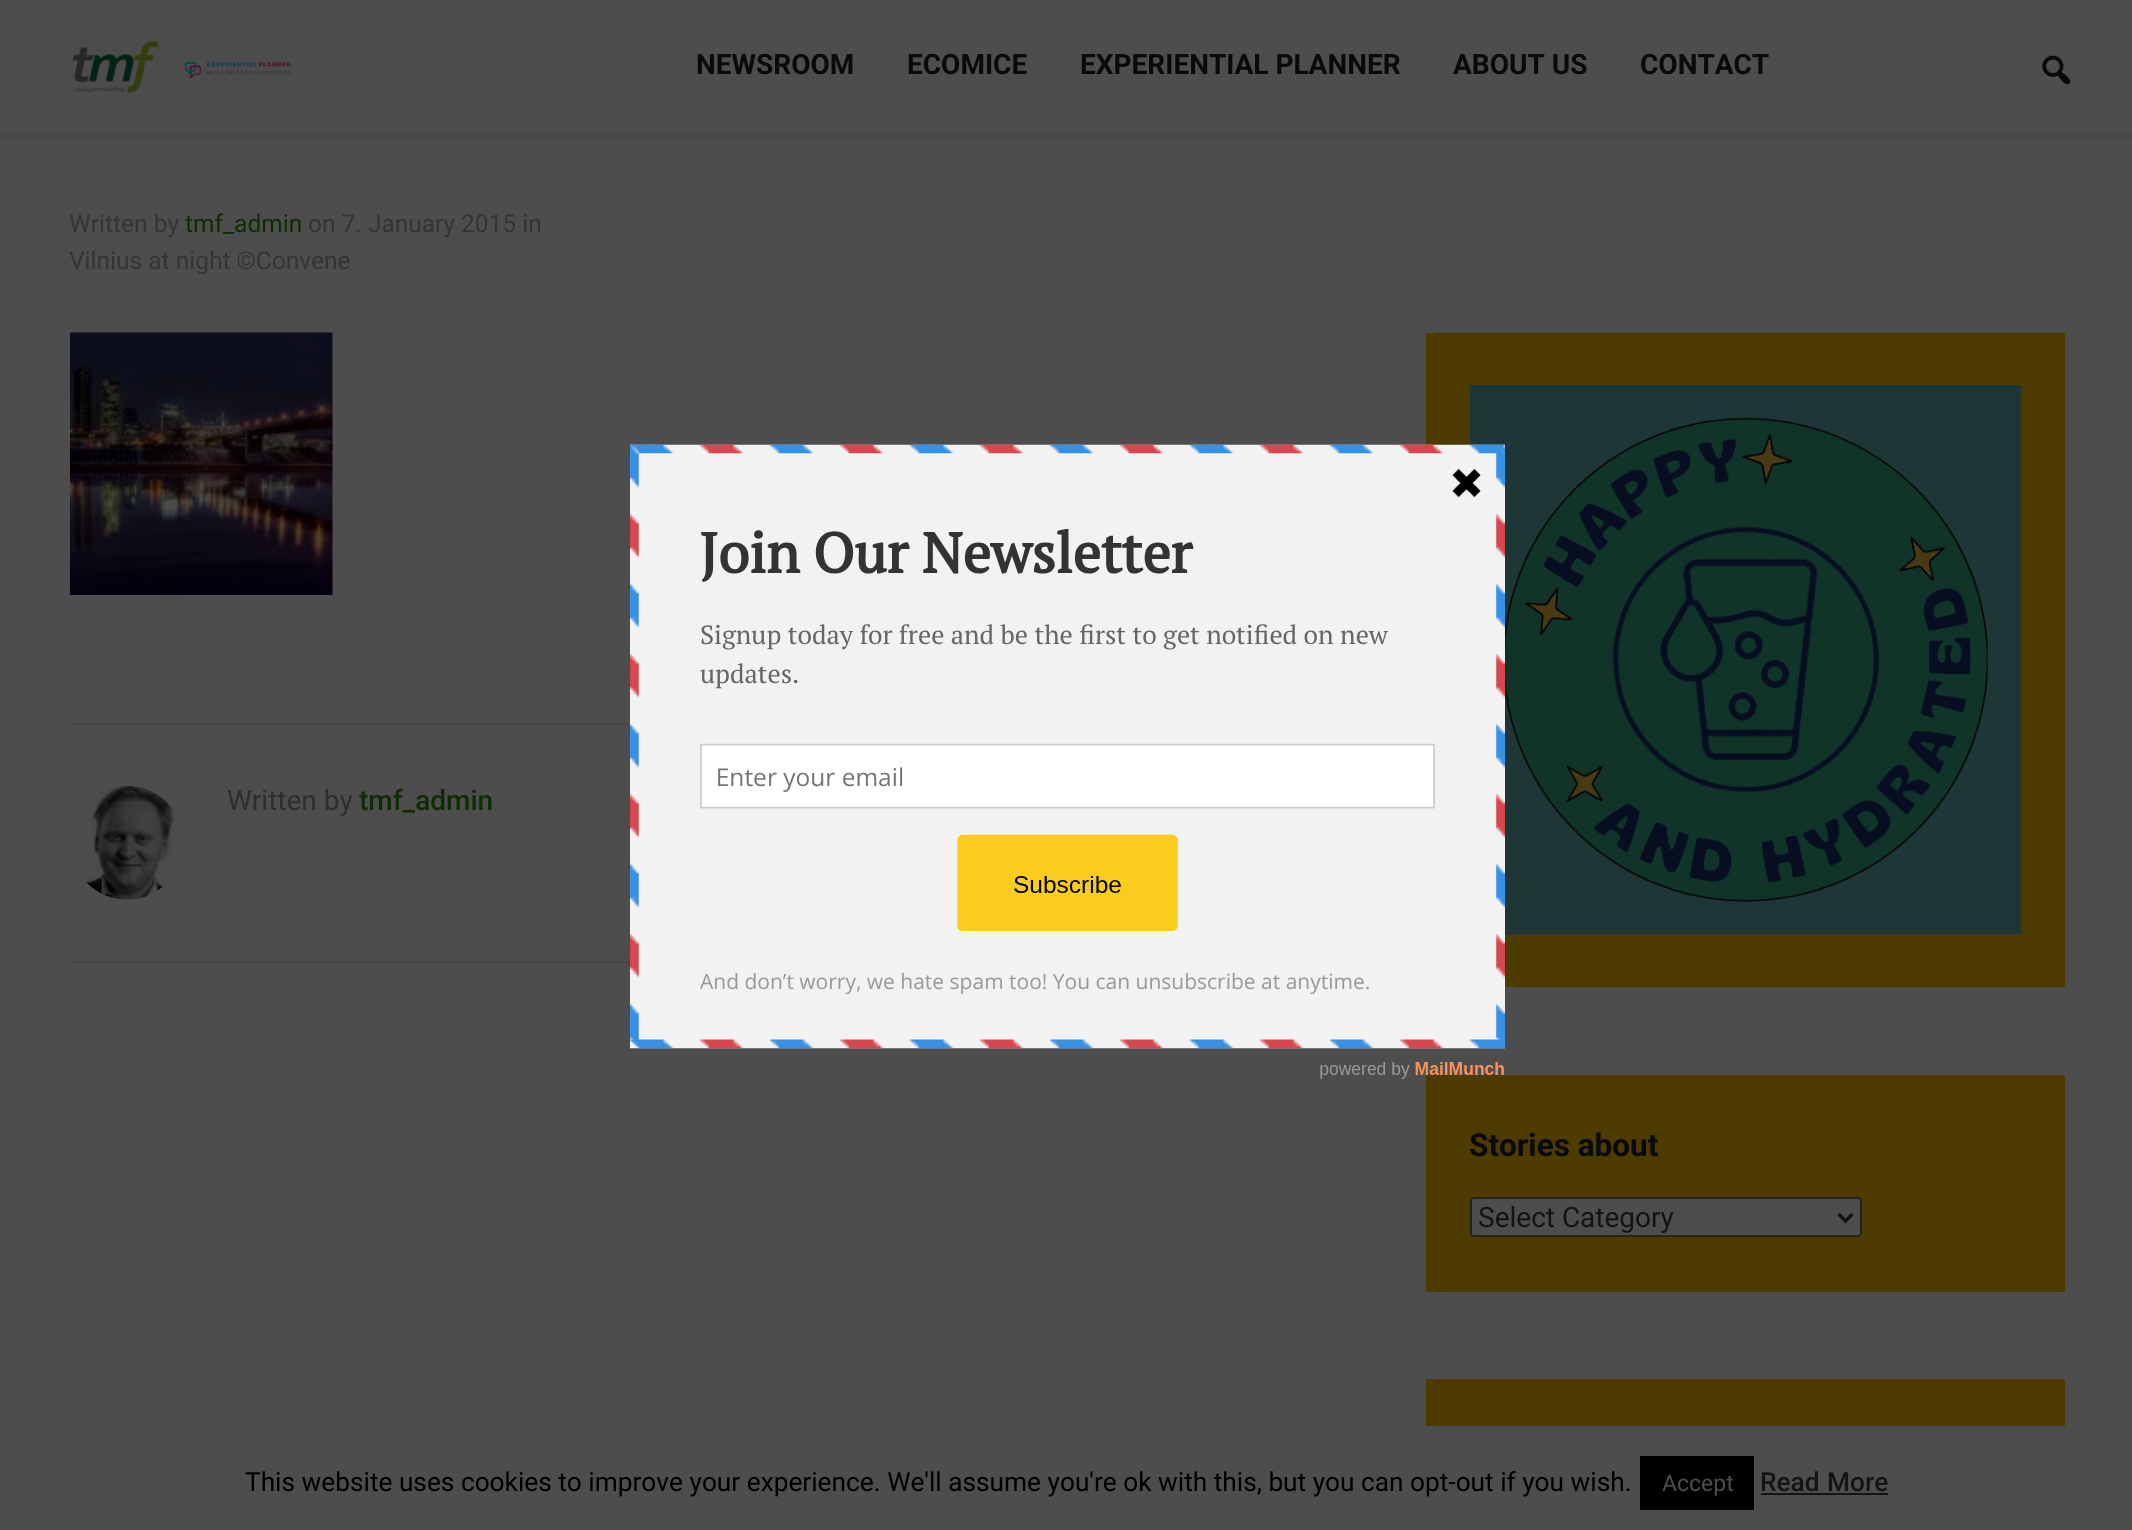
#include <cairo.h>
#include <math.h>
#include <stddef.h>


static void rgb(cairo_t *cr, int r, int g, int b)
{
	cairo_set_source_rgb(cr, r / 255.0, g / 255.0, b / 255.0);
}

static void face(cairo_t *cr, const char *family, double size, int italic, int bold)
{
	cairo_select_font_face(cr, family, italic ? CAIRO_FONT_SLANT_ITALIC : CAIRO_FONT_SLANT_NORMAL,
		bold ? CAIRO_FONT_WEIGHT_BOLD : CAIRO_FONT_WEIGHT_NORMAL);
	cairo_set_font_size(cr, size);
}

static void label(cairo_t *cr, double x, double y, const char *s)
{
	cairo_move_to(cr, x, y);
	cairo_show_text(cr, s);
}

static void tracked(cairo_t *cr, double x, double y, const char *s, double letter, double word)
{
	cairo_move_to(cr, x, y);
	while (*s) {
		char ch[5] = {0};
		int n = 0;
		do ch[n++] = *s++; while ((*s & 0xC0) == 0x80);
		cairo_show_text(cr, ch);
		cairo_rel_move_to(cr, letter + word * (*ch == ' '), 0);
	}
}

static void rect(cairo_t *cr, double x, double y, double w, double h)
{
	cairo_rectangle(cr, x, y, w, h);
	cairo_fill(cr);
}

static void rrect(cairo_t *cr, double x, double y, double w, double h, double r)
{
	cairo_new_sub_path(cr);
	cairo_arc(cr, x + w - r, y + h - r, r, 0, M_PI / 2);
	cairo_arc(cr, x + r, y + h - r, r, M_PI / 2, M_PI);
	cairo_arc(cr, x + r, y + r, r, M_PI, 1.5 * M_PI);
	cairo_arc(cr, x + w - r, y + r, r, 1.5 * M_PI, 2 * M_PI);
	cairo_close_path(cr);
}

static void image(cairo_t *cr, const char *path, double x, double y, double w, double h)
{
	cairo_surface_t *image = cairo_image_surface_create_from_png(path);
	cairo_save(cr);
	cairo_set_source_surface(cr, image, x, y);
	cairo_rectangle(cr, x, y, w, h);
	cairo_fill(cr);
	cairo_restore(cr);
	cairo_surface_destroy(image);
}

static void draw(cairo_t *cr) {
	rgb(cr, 77, 77, 77);
	cairo_paint(cr);
	rgb(cr, 71, 71, 71);
	rect(cr, 0, 135, 2132, 2);
	image(cr, "image0.png", 72, 40, 220, 53);
	face(cr, "Roboto", 28, 0, 1);
	rgb(cr, 10, 10, 10);
	label(cr, 696, 74, "NEWSROOM");
	label(cr, 907, 74, "ECOMICE");
	label(cr, 1080, 74, "EXPERIENTIAL PLANNER");
	label(cr, 1453, 74, "ABOUT US");
	label(cr, 1640, 74, "CONTACT");
	image(cr, "image1.png", 2042, 55, 29, 30);
	face(cr, "Roboto", 24.5, 0, 0);
	rgb(cr, 52, 52, 52);
	label(cr, 69, 232, "Written by");
	rgb(cr, 15, 45, 4);
	label(cr, 185, 232, "tmf_admin");
	rgb(cr, 52, 52, 52);
	label(cr, 308, 232, "on 7. January 2015 in");
	label(cr, 69, 269, "Vilnius at night ©Convene");
	image(cr, "image2.png", 70, 332, 263, 263);
	rgb(cr, 71, 71, 71);
	rect(cr, 70, 723, 560, 2);
	rect(cr, 70, 961, 560, 2);
	image(cr, "image3.png", 84, 785, 92, 115);
	face(cr, "Roboto", 28, 0, 0);
	rgb(cr, 46, 46, 46);
	label(cr, 227, 810, "Written by");
	face(cr, "Roboto Medium", 28, 0, 0);
	rgb(cr, 15, 45, 4);
	label(cr, 359, 810, "tmf_admin");
	rgb(cr, 77, 59, 0);
	rect(cr, 1426, 333, 639, 654);
	image(cr, "image4.png", 1470, 385, 552, 550);
	rect(cr, 1426, 1075, 639, 217);
	face(cr, "Roboto", 31.5, 0, 1);
	rgb(cr, 10, 10, 10);
	label(cr, 1469, 1156, "Stories about");
	rgb(cr, 77, 77, 77);
	rrect(cr, 1471, 1198, 390, 38, 3);
	cairo_fill_preserve(cr);
	rgb(cr, 35, 35, 35);
	cairo_stroke(cr);
	cairo_new_path(cr);
	cairo_move_to(cr, 1838.5, 1214);
	cairo_line_to(cr, 1845.5, 1221);
	cairo_line_to(cr, 1852.5, 1214);
	rgb(cr, 20, 20, 20);
	cairo_set_line_width(cr, 3.5);
	cairo_stroke(cr);
	face(cr, "Roboto", 28, 0, 0);
	label(cr, 1478, 1227, "Select Category");
	rgb(cr, 77, 59, 0);
	rect(cr, 1426, 1379, 639, 47);
	face(cr, "Roboto", 26.25, 0, 0);
	rgb(cr, 0, 0, 0);
	label(cr, 245, 1491, "This website uses cookies to improve your experience. We'll assume you're ok with this, but you can opt-out if you wish.");
	rect(cr, 1640, 1456, 114, 54);
	face(cr, "Roboto", 23, 0, 0);
	rgb(cr, 77, 77, 77);
	label(cr, 1662, 1491, "Accept");
	face(cr, "Roboto Medium", 26.25, 0, 0);
	rgb(cr, 20, 20, 20);
	tracked(cr, 1760, 1491, "Read More", 0, 1);
	rect(cr, 1761, 1493, 127, 2);
	image(cr, "image5.png", 630, 444, 875, 635);
}

int main(void) {
	cairo_surface_t *surface = cairo_image_surface_create(CAIRO_FORMAT_RGB24, 2132, 1530);
	cairo_t *cr = cairo_create(surface);
	cairo_font_options_t *options = cairo_font_options_create();
	cairo_font_options_set_hint_metrics(options, CAIRO_HINT_METRICS_OFF);
	cairo_font_options_set_hint_style(options, CAIRO_HINT_STYLE_NONE);
	cairo_set_font_options(cr, options);
	cairo_set_miter_limit(cr, 4);
	draw(cr);
	cairo_surface_write_to_png(surface, "render.png");
	cairo_font_options_destroy(options);
	cairo_destroy(cr);
	cairo_surface_destroy(surface);
	return 0;
}
